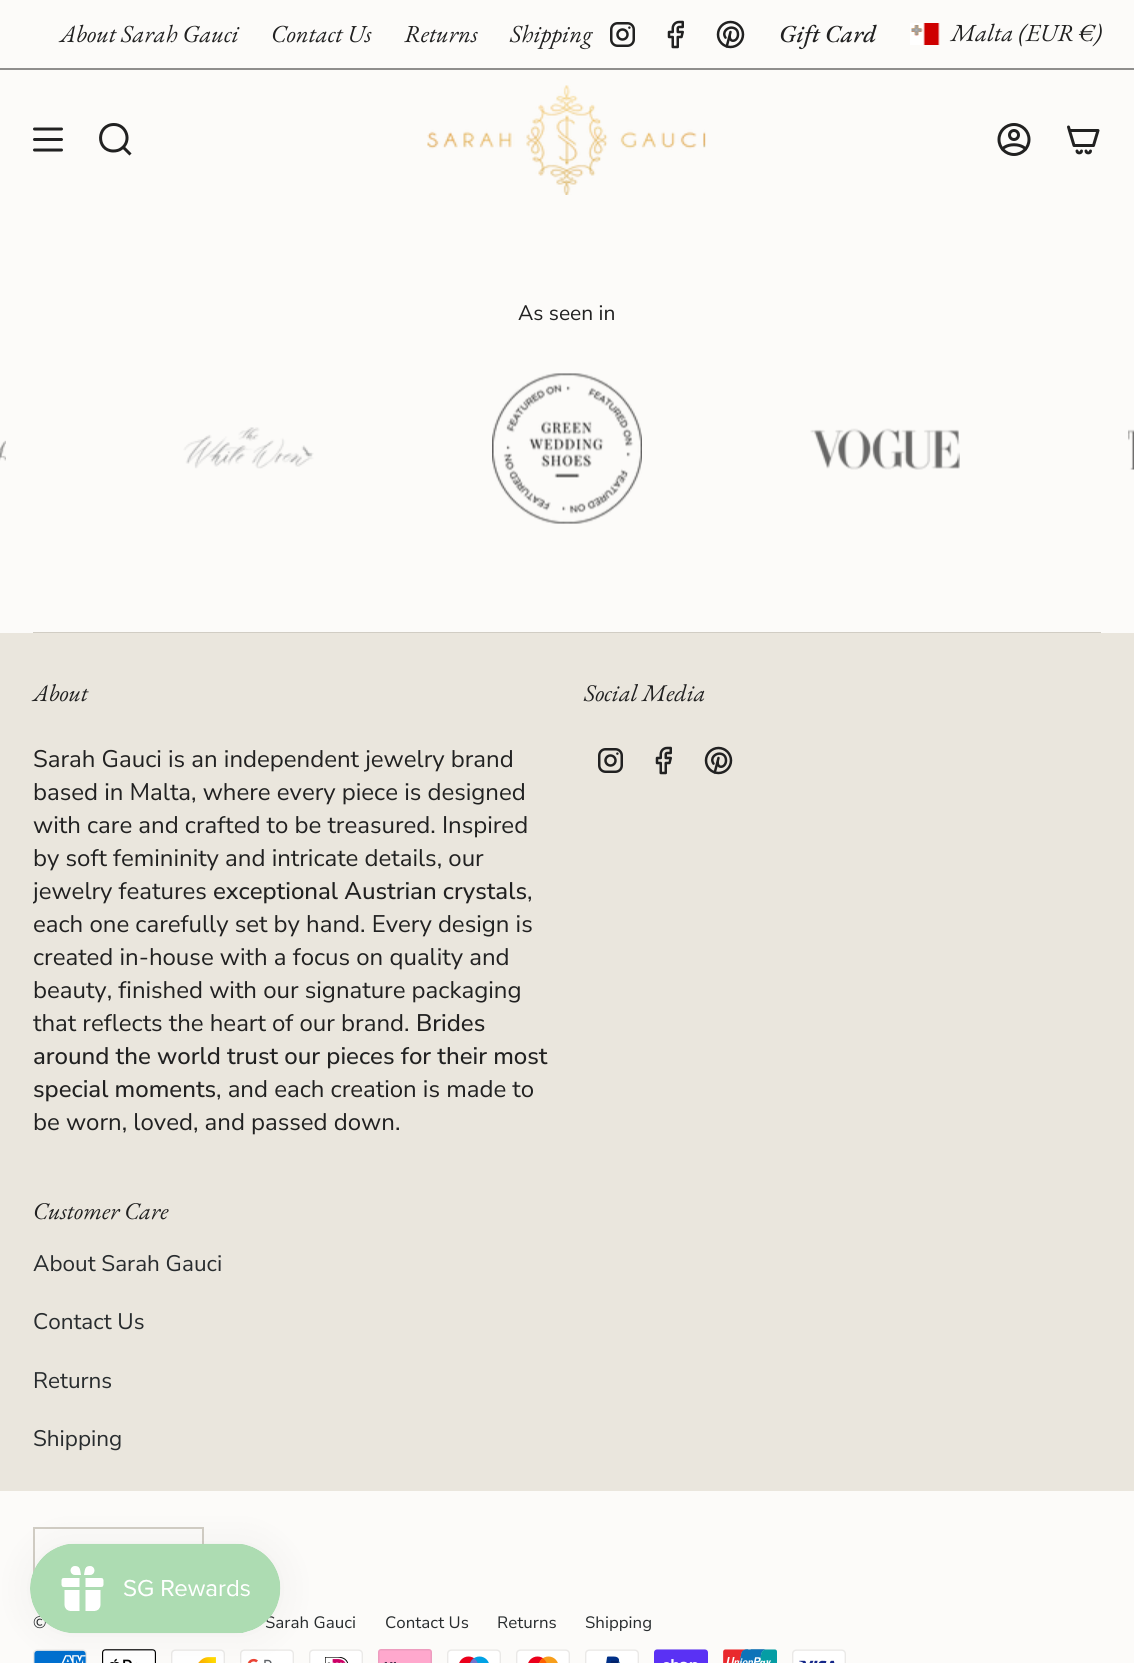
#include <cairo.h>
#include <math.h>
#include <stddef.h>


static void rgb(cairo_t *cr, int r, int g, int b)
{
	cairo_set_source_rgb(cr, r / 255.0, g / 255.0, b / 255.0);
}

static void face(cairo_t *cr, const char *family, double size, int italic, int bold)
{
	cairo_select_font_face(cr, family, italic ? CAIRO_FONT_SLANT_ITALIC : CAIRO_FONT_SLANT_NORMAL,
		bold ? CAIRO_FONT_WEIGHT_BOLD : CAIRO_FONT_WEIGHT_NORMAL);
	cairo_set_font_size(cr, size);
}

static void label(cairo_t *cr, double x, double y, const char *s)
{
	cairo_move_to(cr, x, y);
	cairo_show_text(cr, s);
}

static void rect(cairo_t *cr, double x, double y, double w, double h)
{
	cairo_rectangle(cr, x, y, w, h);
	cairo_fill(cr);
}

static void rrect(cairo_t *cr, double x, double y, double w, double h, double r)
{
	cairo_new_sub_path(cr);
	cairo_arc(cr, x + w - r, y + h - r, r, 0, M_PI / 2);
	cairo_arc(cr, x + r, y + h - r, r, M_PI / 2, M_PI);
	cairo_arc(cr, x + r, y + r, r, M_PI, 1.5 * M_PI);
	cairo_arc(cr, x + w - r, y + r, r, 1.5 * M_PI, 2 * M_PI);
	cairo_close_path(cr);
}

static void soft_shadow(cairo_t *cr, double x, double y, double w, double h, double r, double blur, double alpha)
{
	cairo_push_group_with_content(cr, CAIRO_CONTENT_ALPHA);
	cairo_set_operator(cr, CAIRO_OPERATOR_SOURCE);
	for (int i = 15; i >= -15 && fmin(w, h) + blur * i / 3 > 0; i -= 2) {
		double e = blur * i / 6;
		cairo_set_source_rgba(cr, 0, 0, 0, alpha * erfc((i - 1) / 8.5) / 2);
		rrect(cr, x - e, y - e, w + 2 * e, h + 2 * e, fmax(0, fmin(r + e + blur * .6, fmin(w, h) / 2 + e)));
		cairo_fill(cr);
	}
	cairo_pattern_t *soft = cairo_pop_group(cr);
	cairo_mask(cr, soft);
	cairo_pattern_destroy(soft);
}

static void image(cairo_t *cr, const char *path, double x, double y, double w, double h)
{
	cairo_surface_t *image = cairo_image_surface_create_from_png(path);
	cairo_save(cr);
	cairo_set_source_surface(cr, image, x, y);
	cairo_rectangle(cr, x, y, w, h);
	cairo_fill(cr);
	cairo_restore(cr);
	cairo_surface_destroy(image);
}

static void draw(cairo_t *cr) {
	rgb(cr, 252, 251, 249);
	cairo_paint(cr);
	face(cr, "EB Garamond", 24.5, 1, 0);
	rgb(cr, 33, 33, 33);
	label(cr, 60, 42, "About Sarah Gauci");
	label(cr, 271, 42, "Contact Us");
	label(cr, 404, 42, "Returns");
	label(cr, 510, 42, "Shipping");
	image(cr, "image0.png", 610, 22, 25, 25);
	image(cr, "image1.png", 667, 20, 17, 29);
	image(cr, "image2.png", 716, 20, 29, 29);
	face(cr, "EB Garamond Medium", 24.5, 1, 0);
	label(cr, 779, 42, "Gift Card");
	image(cr, "image3.png", 910, 23, 30, 22);
	face(cr, "EB Garamond", 24.5, 1, 0);
	label(cr, 951, 41, "Malta (EUR €)");
	rgb(cr, 143, 142, 141);
	rect(cr, 0, 68, 1134, 2);
	cairo_new_path(cr);
	cairo_move_to(cr, 34.5, 129);
	cairo_line_to(cr, 61.5, 129);
	cairo_move_to(cr, 34.5, 139.5);
	cairo_line_to(cr, 61.5, 139.5);
	cairo_move_to(cr, 34.5, 150);
	cairo_line_to(cr, 61.5, 150);
	rgb(cr, 33, 33, 33);
	cairo_set_line_width(cr, 3);
	cairo_set_line_cap(cr, CAIRO_LINE_CAP_ROUND);
	cairo_set_line_join(cr, CAIRO_LINE_JOIN_ROUND);
	cairo_stroke(cr);
	cairo_new_path(cr);
	cairo_move_to(cr, 114, 124.5);
	cairo_curve_to(cr, 126.5, 124.5, 132, 141, 121.5, 148.5);
	cairo_curve_to(cr, 119, 150.5, 116, 151, 113, 151);
	cairo_curve_to(cr, 96, 150.5, 96.5, 124.5, 114, 124.5);
	cairo_close_path(cr);
	cairo_move_to(cr, 123, 147);
	cairo_line_to(cr, 130.5, 154.5);
	cairo_set_line_cap(cr, CAIRO_LINE_CAP_BUTT);
	cairo_set_line_join(cr, CAIRO_LINE_JOIN_MITER);
	cairo_stroke(cr);
	image(cr, "image4.png", 427, 85, 279, 110);
	image(cr, "image5.png", 997, 123, 34, 33);
	cairo_new_path(cr);
	cairo_move_to(cr, 1069.5, 130.5);
	cairo_line_to(cr, 1098, 130.5);
	cairo_line_to(cr, 1093.5, 145.5);
	cairo_line_to(cr, 1074, 145.5);
	cairo_close_path(cr);
	cairo_move_to(cr, 1069.5, 130.5);
	cairo_line_to(cr, 1068.5, 127);
	cairo_move_to(cr, 1081.5, 151);
	cairo_curve_to(cr, 1081.5, 153.5, 1077, 153.5, 1077, 151);
	cairo_move_to(cr, 1090.5, 151);
	cairo_curve_to(cr, 1090.5, 153.5, 1086, 153.5, 1086, 151);
	cairo_set_line_cap(cr, CAIRO_LINE_CAP_ROUND);
	cairo_set_line_join(cr, CAIRO_LINE_JOIN_ROUND);
	cairo_stroke(cr);
	face(cr, "Nunito Sans", 21, 0, 0);
	label(cr, 518, 320, "As seen in");
	image(cr, "image6.png", 0, 440, 6, 21);
	image(cr, "image7.png", 183, 427, 131, 42);
	image(cr, "image8.png", 492, 373, 150, 151);
	image(cr, "image9.png", 810, 428, 150, 42);
	image(cr, "image10.png", 1128, 429, 6, 41);
	rgb(cr, 209, 205, 196);
	rect(cr, 33, 632, 1068, 1);
	rgb(cr, 234, 230, 221);
	rect(cr, 0, 633, 1134, 858);
	face(cr, "EB Garamond", 24, 1, 0);
	rgb(cr, 33, 33, 33);
	label(cr, 33, 701, "About");
	face(cr, "Nunito Sans", 24, 0, 0);
	label(cr, 33, 767, "Sarah Gauci is an independent jewelry brand");
	label(cr, 33, 800, "based in Malta, where every piece is designed");
	label(cr, 33, 833, "with care and crafted to be treasured. Inspired");
	label(cr, 33, 866, "by soft femininity and intricate details, our");
	cairo_save(cr);
	cairo_rectangle(cr, 33, 731, 518, 420);
	cairo_clip(cr);
	label(cr, 33, 899, "jewelry features");
	cairo_restore(cr);
	face(cr, "Nunito Sans Medium", 24, 0, 0);
	label(cr, 213, 899, "exceptional Austrian crystals");
	face(cr, "Nunito Sans", 24, 0, 0);
	label(cr, 527, 899, ",");
	label(cr, 33, 932, "each one carefully set by hand. Every design is");
	label(cr, 33, 965, "created in-house with a focus on quality and");
	label(cr, 33, 998, "beauty, finished with our signature packaging");
	label(cr, 33, 1031, "that reflects the heart of our brand.");
	face(cr, "Nunito Sans Medium", 24, 0, 0);
	label(cr, 416, 1031, "Brides");
	label(cr, 33, 1064, "around the world trust our pieces for their most");
	label(cr, 33, 1097, "special moments");
	face(cr, "Nunito Sans", 24, 0, 0);
	label(cr, 216, 1097, ", and each creation is made to");
	label(cr, 33, 1130, "be worn, loved, and passed down.");
	face(cr, "EB Garamond", 24, 1, 0);
	label(cr, 584, 701, "Social Media");
	image(cr, "image11.png", 598, 748, 25, 25);
	image(cr, "image12.png", 655, 746, 17, 29);
	image(cr, "image13.png", 704, 746, 29, 29);
	label(cr, 33, 1219, "Customer Care");
	face(cr, "Nunito Sans", 22.5, 0, 0);
	rgb(cr, 40, 44, 46);
	label(cr, 33, 1271, "About Sarah Gauci");
	label(cr, 33, 1329, "Contact Us");
	label(cr, 33, 1388, "Returns");
	label(cr, 33, 1446, "Shipping");
	cairo_rectangle(cr, 34, 1528, 169, 67);
	rgb(cr, 209, 205, 196);
	cairo_set_line_width(cr, 2);
	cairo_set_line_cap(cr, CAIRO_LINE_CAP_BUTT);
	cairo_set_line_join(cr, CAIRO_LINE_JOIN_MITER);
	cairo_stroke(cr);
	face(cr, "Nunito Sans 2", 16.5, 0, 0);
	rgb(cr, 40, 44, 46);
	label(cr, 33, 1628, "©");
	label(cr, 265, 1628, "Sarah Gauci");
	label(cr, 385, 1628, "Contact Us");
	label(cr, 497, 1628, "Returns");
	label(cr, 585, 1628, "Shipping");
	image(cr, "image14.png", 33, 1649, 54, 14);
	image(cr, "image15.png", 102, 1649, 54, 14);
	image(cr, "image16.png", 171, 1649, 54, 14);
	image(cr, "image17.png", 240, 1649, 54, 14);
	image(cr, "image18.png", 309, 1649, 54, 14);
	image(cr, "image19.png", 378, 1649, 54, 14);
	image(cr, "image20.png", 447, 1649, 54, 14);
	image(cr, "image21.png", 516, 1649, 54, 14);
	image(cr, "image22.png", 585, 1649, 54, 14);
	image(cr, "image23.png", 654, 1649, 54, 14);
	image(cr, "image24.png", 723, 1649, 54, 14);
	image(cr, "image25.png", 792, 1649, 54, 14);
	rgb(cr, 0, 0, 0);
	soft_shadow(cr, 30, 1544, 251, 90, 45, 19, 0.05);
	image(cr, "image26.png", 30, 1543, 251, 91);
}

int main(void) {
	cairo_surface_t *surface = cairo_image_surface_create(CAIRO_FORMAT_RGB24, 1134, 1663);
	cairo_t *cr = cairo_create(surface);
	cairo_font_options_t *options = cairo_font_options_create();
	cairo_font_options_set_hint_metrics(options, CAIRO_HINT_METRICS_OFF);
	cairo_font_options_set_hint_style(options, CAIRO_HINT_STYLE_NONE);
	cairo_set_font_options(cr, options);
	cairo_set_miter_limit(cr, 4);
	draw(cr);
	cairo_surface_write_to_png(surface, "render.png");
	cairo_font_options_destroy(options);
	cairo_destroy(cr);
	cairo_surface_destroy(surface);
	return 0;
}
